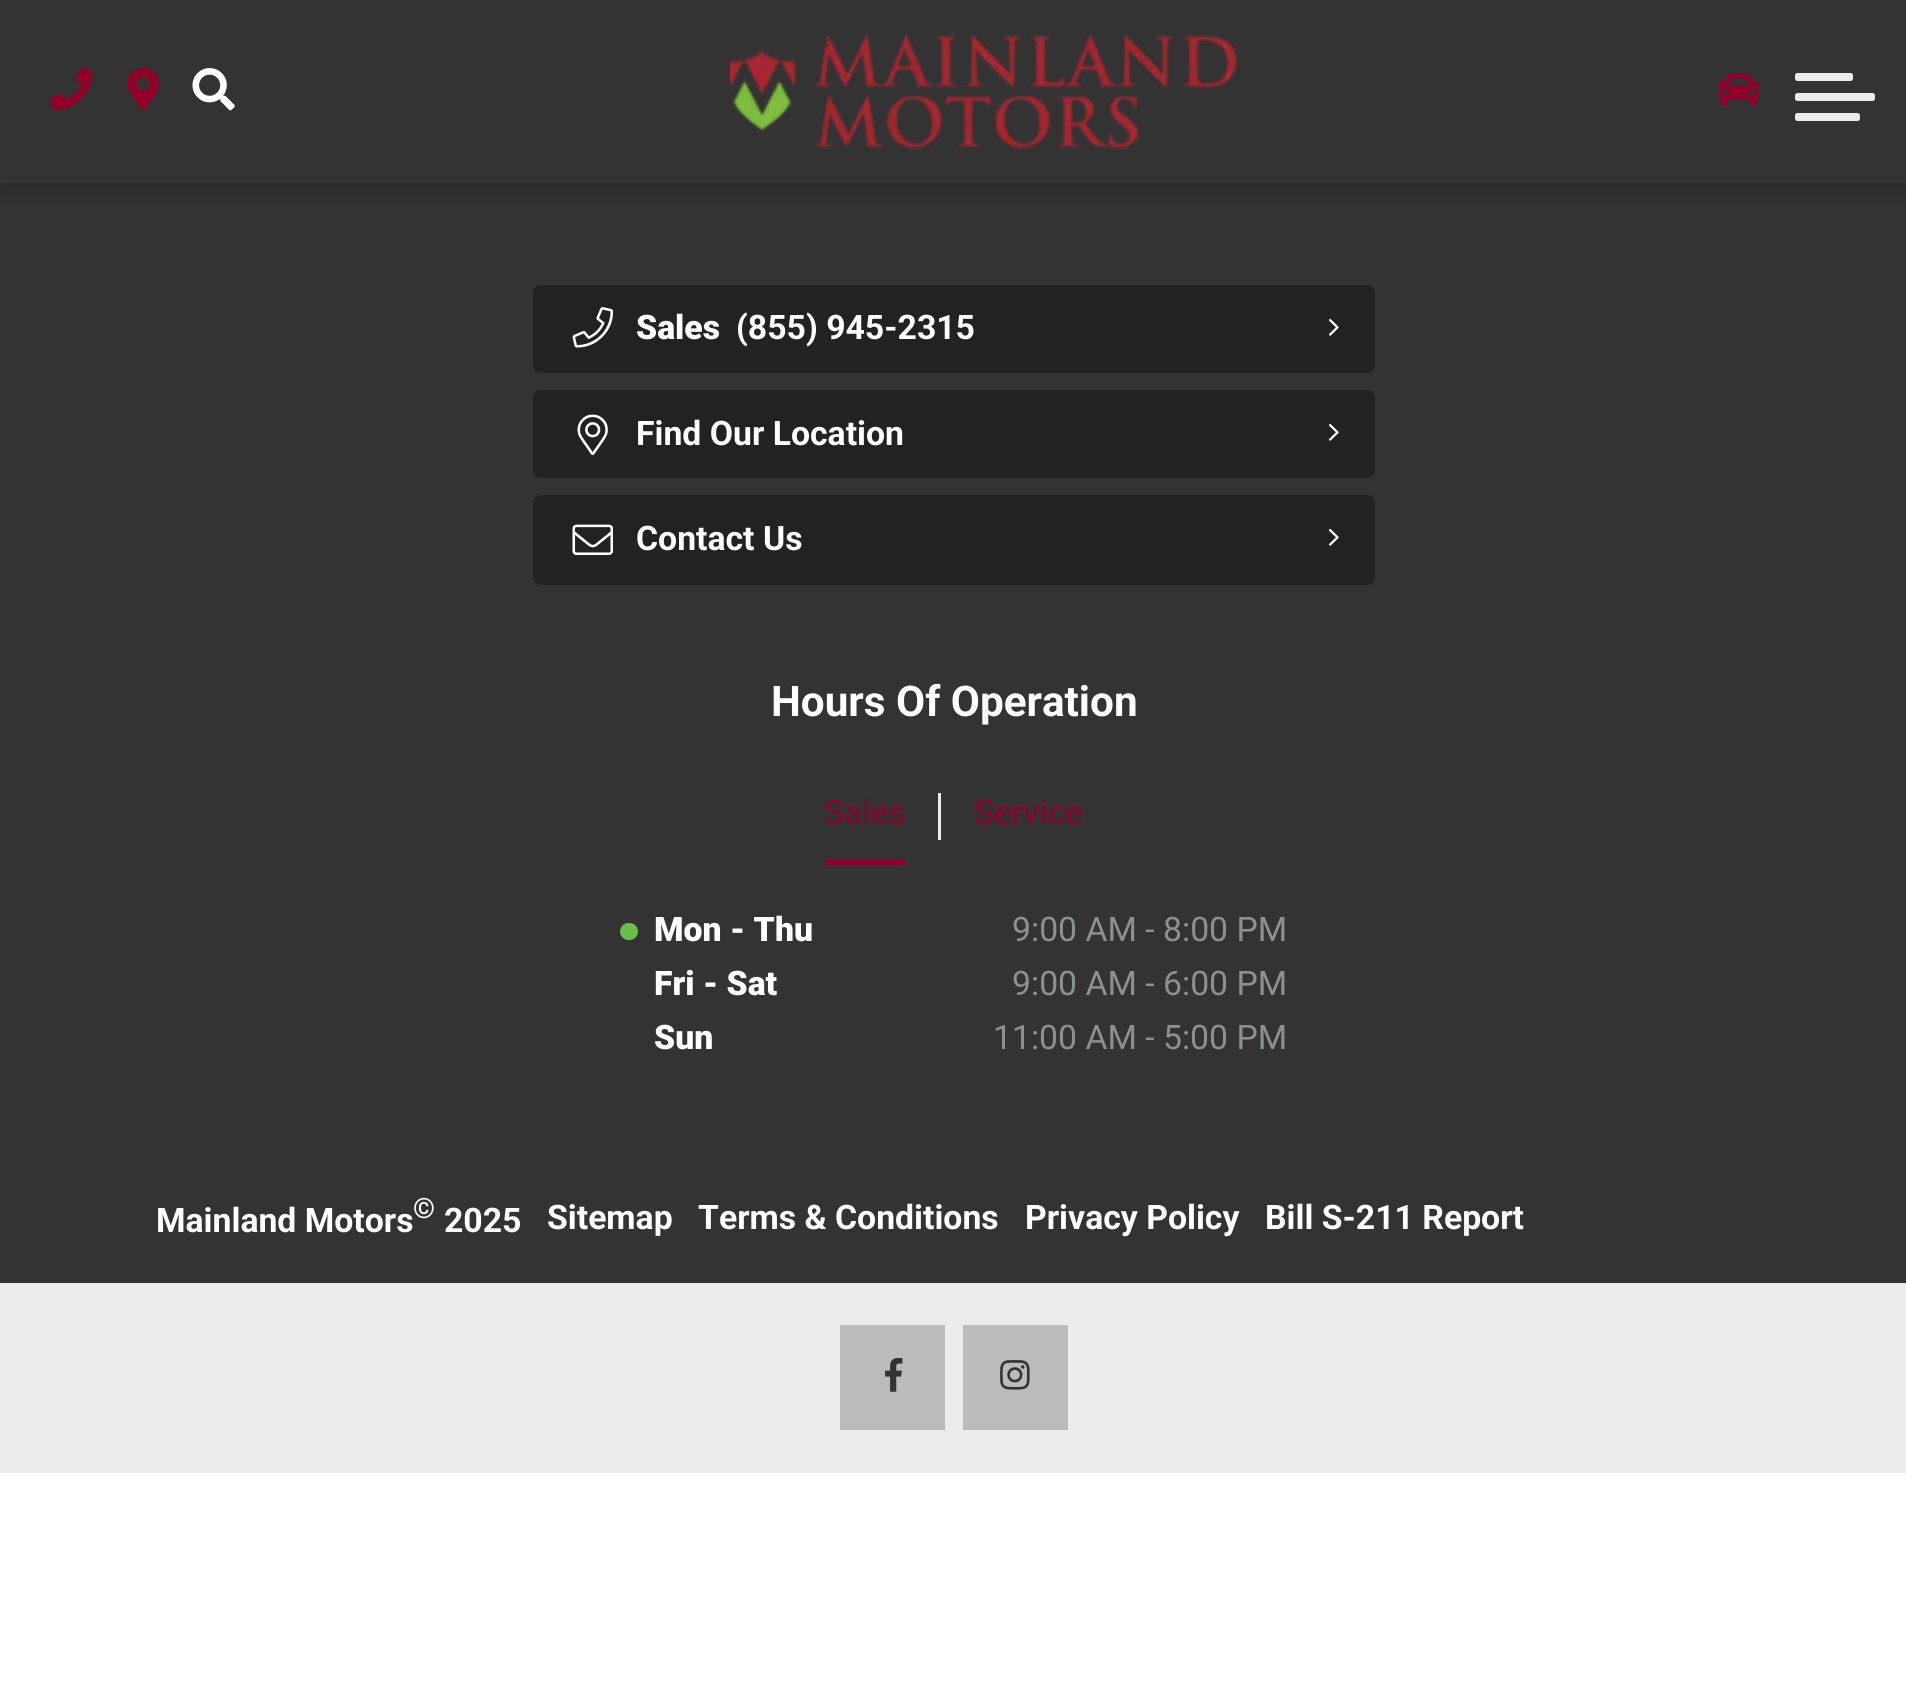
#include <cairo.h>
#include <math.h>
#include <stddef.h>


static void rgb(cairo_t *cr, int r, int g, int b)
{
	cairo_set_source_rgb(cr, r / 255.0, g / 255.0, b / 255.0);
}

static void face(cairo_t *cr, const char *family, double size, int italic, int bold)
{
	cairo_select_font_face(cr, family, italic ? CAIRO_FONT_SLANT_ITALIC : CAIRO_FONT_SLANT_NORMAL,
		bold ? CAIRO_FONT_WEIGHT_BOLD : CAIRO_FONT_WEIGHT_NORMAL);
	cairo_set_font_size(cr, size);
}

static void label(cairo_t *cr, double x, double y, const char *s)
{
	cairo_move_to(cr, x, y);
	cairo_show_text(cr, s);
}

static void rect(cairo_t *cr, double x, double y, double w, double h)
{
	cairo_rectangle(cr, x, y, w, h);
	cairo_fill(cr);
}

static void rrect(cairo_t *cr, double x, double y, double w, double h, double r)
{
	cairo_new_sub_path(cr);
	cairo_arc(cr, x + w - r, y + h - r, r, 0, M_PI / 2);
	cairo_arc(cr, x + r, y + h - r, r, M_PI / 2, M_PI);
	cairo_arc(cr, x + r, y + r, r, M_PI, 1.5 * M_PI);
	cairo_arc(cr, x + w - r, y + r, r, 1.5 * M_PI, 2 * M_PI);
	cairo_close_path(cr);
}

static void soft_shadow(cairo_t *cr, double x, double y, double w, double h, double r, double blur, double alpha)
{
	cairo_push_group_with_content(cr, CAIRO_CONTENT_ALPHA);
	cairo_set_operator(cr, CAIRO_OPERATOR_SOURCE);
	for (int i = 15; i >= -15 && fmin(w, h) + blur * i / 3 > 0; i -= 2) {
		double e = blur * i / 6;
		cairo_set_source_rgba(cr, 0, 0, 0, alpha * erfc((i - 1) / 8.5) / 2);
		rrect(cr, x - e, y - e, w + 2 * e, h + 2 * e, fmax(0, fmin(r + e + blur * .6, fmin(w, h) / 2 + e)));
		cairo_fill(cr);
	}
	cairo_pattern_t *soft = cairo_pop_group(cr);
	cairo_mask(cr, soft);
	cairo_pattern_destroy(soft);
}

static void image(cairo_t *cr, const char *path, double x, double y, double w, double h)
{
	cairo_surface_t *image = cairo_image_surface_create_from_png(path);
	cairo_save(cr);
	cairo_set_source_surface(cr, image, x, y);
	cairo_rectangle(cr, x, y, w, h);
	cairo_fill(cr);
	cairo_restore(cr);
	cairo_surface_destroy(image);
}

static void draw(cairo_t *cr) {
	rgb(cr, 255, 255, 255);
	cairo_paint(cr);
	rgb(cr, 51, 51, 51);
	rect(cr, 0, 183, 1906, 1100);
	rgb(cr, 0, 0, 0);
	soft_shadow(cr, 0, 8, 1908, 182, 0, 12.5, 0.2);
	rgb(cr, 51, 51, 51);
	rect(cr, 0, 0, 1906, 183);
	image(cr, "image0.png", 50, 68, 43, 43);
	image(cr, "image1.png", 127, 68, 33, 43);
	image(cr, "image2.png", 192, 68, 43, 43);
	image(cr, "image3.png", 730, 35, 508, 115);
	image(cr, "image4.png", 1717, 73, 43, 32);
	rgb(cr, 236, 236, 236);
	rrect(cr, 1795, 93, 80, 8, 2.5);
	cairo_fill(cr);
	rrect(cr, 1795, 73, 58, 8, 2.5);
	cairo_fill(cr);
	rrect(cr, 1795, 113, 65, 8, 2.5);
	cairo_fill(cr);
	rgb(cr, 34, 34, 34);
	rrect(cr, 533, 285, 842, 88, 8);
	cairo_fill(cr);
	image(cr, "image5.png", 572, 307, 42, 41);
	face(cr, "Roboto Black", 33.75, 0, 0);
	rgb(cr, 255, 255, 255);
	label(cr, 636, 339, "Sales");
	face(cr, "Roboto", 33.75, 0, 1);
	label(cr, 736, 339, "(855) 945-2315");
	image(cr, "image6.png", 1328, 318, 11, 18);
	rgb(cr, 34, 34, 34);
	rrect(cr, 533, 390, 842, 88, 8);
	cairo_fill(cr);
	image(cr, "image7.png", 577, 414, 31, 41);
	rgb(cr, 255, 255, 255);
	label(cr, 636, 445, "Find Our Location");
	image(cr, "image6.png", 1328, 423, 11, 18);
	rgb(cr, 34, 34, 34);
	rrect(cr, 533, 495, 842, 90, 8);
	cairo_fill(cr);
	image(cr, "image8.png", 572, 524, 41, 31);
	rgb(cr, 255, 255, 255);
	label(cr, 636, 550, "Contact Us");
	image(cr, "image6.png", 1328, 528, 11, 18);
	face(cr, "Roboto", 42.25, 0, 1);
	label(cr, 771, 716, "Hours Of Operation");
	rgb(cr, 145, 0, 40);
	rect(cr, 825, 860, 80, 5);
	face(cr, "Roboto", 33.75, 0, 0);
	label(cr, 824, 824, "Sales");
	rgb(cr, 236, 236, 236);
	rect(cr, 938, 793, 3, 47);
	rgb(cr, 145, 0, 40);
	label(cr, 974, 824, "Service");
	rgb(cr, 107, 191, 73);
	rrect(cr, 620, 923, 18, 17, 8.5);
	cairo_fill(cr);
	face(cr, "Roboto Black", 33.75, 0, 0);
	rgb(cr, 255, 255, 255);
	label(cr, 654, 941, "Mon - Thu");
	face(cr, "Roboto", 33.75, 0, 0);
	rgb(cr, 140, 144, 144);
	label(cr, 1012, 941, "9:00 AM - 8:00 PM");
	face(cr, "Roboto Black", 33.75, 0, 0);
	rgb(cr, 255, 255, 255);
	label(cr, 654, 995, "Fri - Sat");
	face(cr, "Roboto", 33.75, 0, 0);
	rgb(cr, 140, 144, 144);
	label(cr, 1012, 995, "9:00 AM - 6:00 PM");
	face(cr, "Roboto Black", 33.75, 0, 0);
	rgb(cr, 255, 255, 255);
	label(cr, 654, 1049, "Sun");
	face(cr, "Roboto", 33.75, 0, 0);
	rgb(cr, 140, 144, 144);
	label(cr, 993, 1049, "11:00 AM - 5:00 PM");
	face(cr, "Roboto", 33.75, 0, 1);
	rgb(cr, 255, 255, 255);
	label(cr, 156, 1232, "Mainland Motors");
	face(cr, "Roboto", 28, 0, 1);
	label(cr, 413, 1218, "©");
	face(cr, "Roboto", 33.75, 0, 1);
	label(cr, 444, 1232, "2025");
	label(cr, 547, 1229, "Sitemap");
	label(cr, 698, 1229, "Terms & Conditions");
	label(cr, 1025, 1229, "Privacy Policy");
	label(cr, 1265, 1229, "Bill S-211 Report");
	rgb(cr, 236, 236, 236);
	rect(cr, 0, 1283, 1906, 190);
	rgb(cr, 187, 187, 187);
	rect(cr, 840, 1325, 105, 105);
	image(cr, "image9.png", 885, 1358, 18, 34);
	rect(cr, 963, 1325, 105, 105);
	image(cr, "image10.png", 1000, 1360, 30, 30);
}

int main(void) {
	cairo_surface_t *surface = cairo_image_surface_create(CAIRO_FORMAT_RGB24, 1906, 1702);
	cairo_t *cr = cairo_create(surface);
	cairo_font_options_t *options = cairo_font_options_create();
	cairo_font_options_set_hint_metrics(options, CAIRO_HINT_METRICS_OFF);
	cairo_font_options_set_hint_style(options, CAIRO_HINT_STYLE_NONE);
	cairo_set_font_options(cr, options);
	cairo_set_miter_limit(cr, 4);
	draw(cr);
	cairo_surface_write_to_png(surface, "render.png");
	cairo_font_options_destroy(options);
	cairo_destroy(cr);
	cairo_surface_destroy(surface);
	return 0;
}
